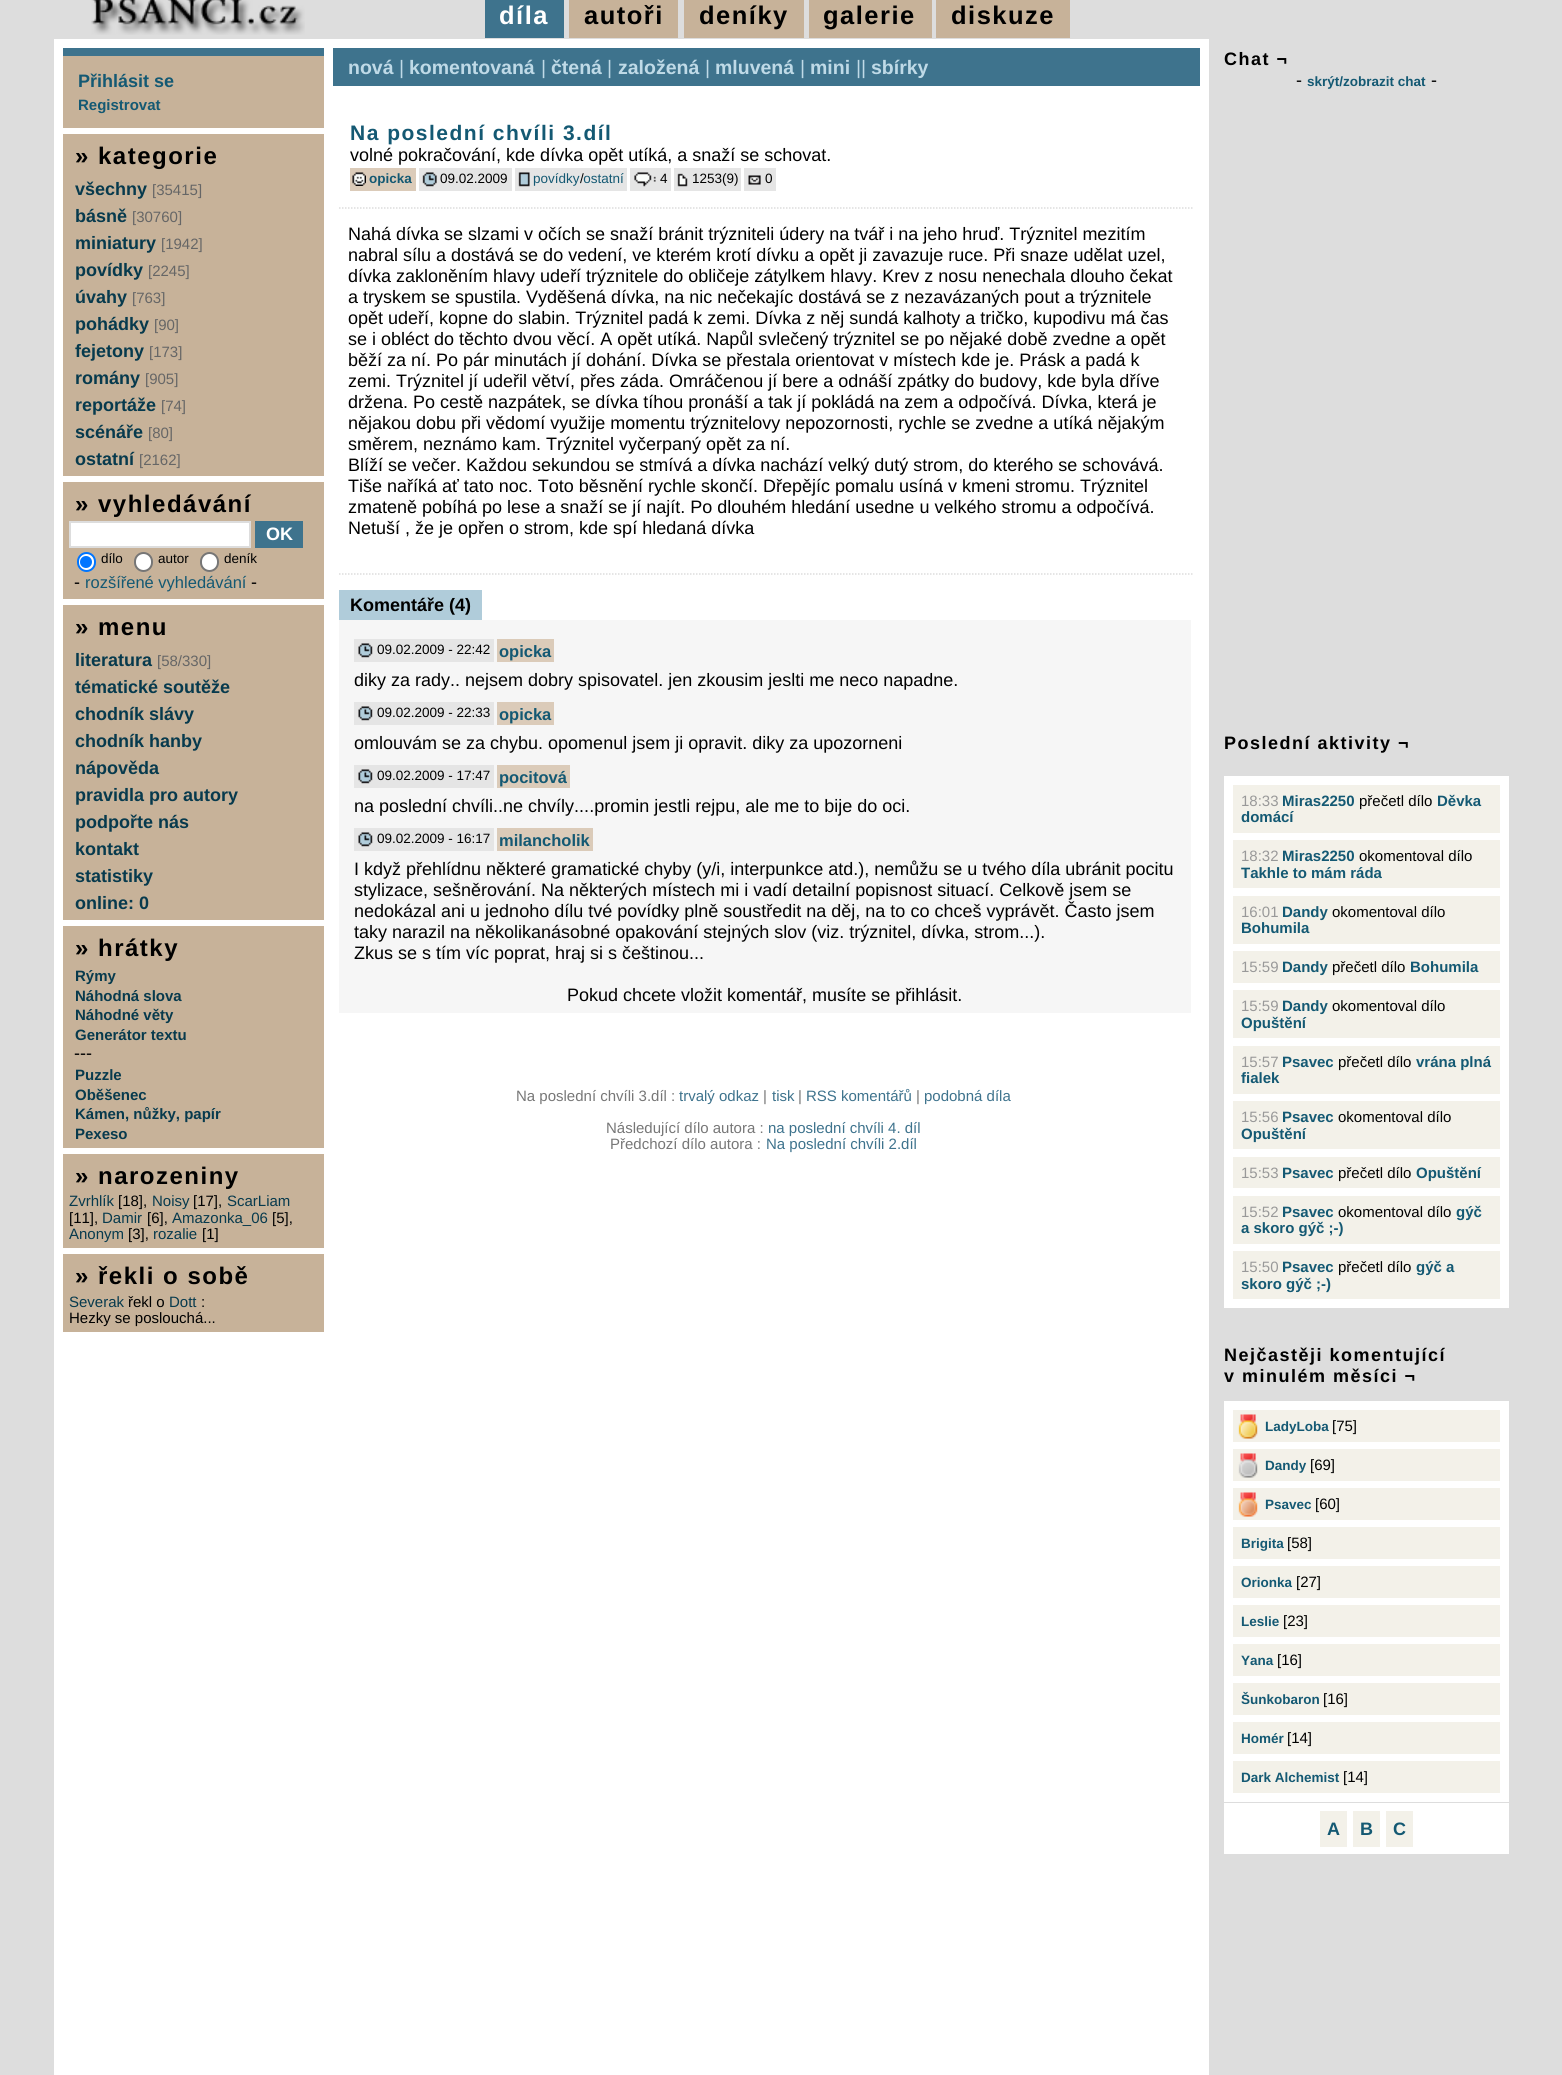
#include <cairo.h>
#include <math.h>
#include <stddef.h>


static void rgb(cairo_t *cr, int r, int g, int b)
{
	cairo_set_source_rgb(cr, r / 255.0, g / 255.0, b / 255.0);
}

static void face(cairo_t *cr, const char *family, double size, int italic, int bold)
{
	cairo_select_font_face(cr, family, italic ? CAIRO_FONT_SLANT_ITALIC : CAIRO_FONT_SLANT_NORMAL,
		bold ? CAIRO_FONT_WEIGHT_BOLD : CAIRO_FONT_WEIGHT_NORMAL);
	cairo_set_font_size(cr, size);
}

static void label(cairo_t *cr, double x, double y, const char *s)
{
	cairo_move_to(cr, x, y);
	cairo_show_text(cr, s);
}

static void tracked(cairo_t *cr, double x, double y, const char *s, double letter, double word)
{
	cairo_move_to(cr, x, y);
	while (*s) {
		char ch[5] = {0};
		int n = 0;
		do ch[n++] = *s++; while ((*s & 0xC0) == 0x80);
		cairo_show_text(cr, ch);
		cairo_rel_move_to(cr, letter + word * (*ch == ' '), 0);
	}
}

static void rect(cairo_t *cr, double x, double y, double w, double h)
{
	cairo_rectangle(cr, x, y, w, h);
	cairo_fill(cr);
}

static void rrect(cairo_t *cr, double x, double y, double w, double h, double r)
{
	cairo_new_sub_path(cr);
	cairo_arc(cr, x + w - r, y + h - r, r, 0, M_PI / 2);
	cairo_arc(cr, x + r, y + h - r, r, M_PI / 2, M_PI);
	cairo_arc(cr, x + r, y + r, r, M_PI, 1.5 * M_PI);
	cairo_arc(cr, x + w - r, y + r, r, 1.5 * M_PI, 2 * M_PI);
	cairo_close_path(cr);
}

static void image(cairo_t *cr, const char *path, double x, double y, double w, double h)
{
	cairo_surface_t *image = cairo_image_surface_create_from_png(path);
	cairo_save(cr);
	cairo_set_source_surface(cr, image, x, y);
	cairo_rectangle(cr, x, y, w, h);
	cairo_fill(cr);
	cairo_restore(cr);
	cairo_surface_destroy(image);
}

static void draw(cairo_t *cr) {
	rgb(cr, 221, 221, 221);
	cairo_paint(cr);
	image(cr, "image0.png", 91, 0, 214, 35);
	rgb(cr, 62, 115, 141);
	rect(cr, 485, 0, 79, 38);
	face(cr, "Liberation Sans", 25.5, 0, 1);
	rgb(cr, 255, 255, 255);
	tracked(cr, 499, 24, "díla", 1.5, 0);
	rgb(cr, 199, 178, 153);
	rect(cr, 569, 0, 109, 38);
	rgb(cr, 0, 0, 0);
	tracked(cr, 584, 24, "autoři", 1.5, 0);
	rgb(cr, 199, 178, 153);
	rect(cr, 684, 0, 120, 38);
	rgb(cr, 0, 0, 0);
	tracked(cr, 699, 24, "deníky", 1.5, 0);
	rgb(cr, 199, 178, 153);
	rect(cr, 809, 0, 123, 38);
	rgb(cr, 0, 0, 0);
	tracked(cr, 823, 24, "galerie", 1.5, 0);
	rgb(cr, 199, 178, 153);
	rect(cr, 936, 0, 134, 38);
	rgb(cr, 0, 0, 0);
	tracked(cr, 951, 24, "diskuze", 1.5, 0);
	rgb(cr, 255, 255, 255);
	rect(cr, 54, 39, 1155, 2036);
	rgb(cr, 199, 178, 153);
	rect(cr, 63, 56, 261, 72);
	rgb(cr, 62, 115, 141);
	rect(cr, 63, 48, 261, 8);
	face(cr, "Liberation Sans", 18, 0, 1);
	rgb(cr, 20, 89, 115);
	label(cr, 78, 87, "Přihlásit se");
	face(cr, "Liberation Sans", 15, 0, 1);
	label(cr, 78, 110, "Registrovat");
	rgb(cr, 199, 178, 153);
	rect(cr, 63, 134, 261, 342);
	face(cr, "Liberation Sans", 24, 0, 1);
	rgb(cr, 0, 0, 0);
	tracked(cr, 75, 164, "» kategorie", 1.5, 0);
	face(cr, "Liberation Sans", 18, 0, 1);
	rgb(cr, 7, 58, 77);
	label(cr, 75, 195, "všechny");
	face(cr, "Liberation Sans", 15, 0, 0);
	rgb(cr, 102, 102, 102);
	label(cr, 152, 195, "[35415]");
	face(cr, "Liberation Sans", 18, 0, 1);
	rgb(cr, 7, 58, 77);
	label(cr, 75, 222, "básně");
	face(cr, "Liberation Sans", 15, 0, 0);
	rgb(cr, 102, 102, 102);
	label(cr, 132, 222, "[30760]");
	face(cr, "Liberation Sans", 18, 0, 1);
	rgb(cr, 7, 58, 77);
	label(cr, 75, 249, "miniatury");
	face(cr, "Liberation Sans", 15, 0, 0);
	rgb(cr, 102, 102, 102);
	label(cr, 161, 249, "[1942]");
	face(cr, "Liberation Sans", 18, 0, 1);
	rgb(cr, 7, 58, 77);
	label(cr, 75, 276, "povídky");
	face(cr, "Liberation Sans", 15, 0, 0);
	rgb(cr, 102, 102, 102);
	label(cr, 148, 276, "[2245]");
	face(cr, "Liberation Sans", 18, 0, 1);
	rgb(cr, 7, 58, 77);
	label(cr, 75, 303, "úvahy");
	face(cr, "Liberation Sans", 15, 0, 0);
	rgb(cr, 102, 102, 102);
	label(cr, 132, 303, "[763]");
	face(cr, "Liberation Sans", 18, 0, 1);
	rgb(cr, 7, 58, 77);
	label(cr, 75, 330, "pohádky");
	face(cr, "Liberation Sans", 15, 0, 0);
	rgb(cr, 102, 102, 102);
	label(cr, 154, 330, "[90]");
	face(cr, "Liberation Sans", 18, 0, 1);
	rgb(cr, 7, 58, 77);
	label(cr, 75, 357, "fejetony");
	face(cr, "Liberation Sans", 15, 0, 0);
	rgb(cr, 102, 102, 102);
	label(cr, 149, 357, "[173]");
	face(cr, "Liberation Sans", 18, 0, 1);
	rgb(cr, 7, 58, 77);
	label(cr, 75, 384, "romány");
	face(cr, "Liberation Sans", 15, 0, 0);
	rgb(cr, 102, 102, 102);
	label(cr, 145, 384, "[905]");
	face(cr, "Liberation Sans", 18, 0, 1);
	rgb(cr, 7, 58, 77);
	label(cr, 75, 411, "reportáže");
	face(cr, "Liberation Sans", 15, 0, 0);
	rgb(cr, 102, 102, 102);
	label(cr, 161, 411, "[74]");
	face(cr, "Liberation Sans", 18, 0, 1);
	rgb(cr, 7, 58, 77);
	label(cr, 75, 438, "scénáře");
	face(cr, "Liberation Sans", 15, 0, 0);
	rgb(cr, 102, 102, 102);
	label(cr, 148, 438, "[80]");
	face(cr, "Liberation Sans", 18, 0, 1);
	rgb(cr, 7, 58, 77);
	label(cr, 75, 465, "ostatní");
	face(cr, "Liberation Sans", 15, 0, 0);
	rgb(cr, 102, 102, 102);
	label(cr, 139, 465, "[2162]");
	rgb(cr, 199, 178, 153);
	rect(cr, 63, 482, 261, 117);
	face(cr, "Liberation Sans", 24, 0, 1);
	rgb(cr, 0, 0, 0);
	tracked(cr, 75, 512, "» vyhledávání", 1.5, 0);
	rgb(cr, 255, 255, 255);
	cairo_rectangle(cr, 70, 522, 180, 25);
	cairo_fill_preserve(cr);
	rgb(cr, 221, 221, 221);
	cairo_stroke(cr);
	rgb(cr, 62, 115, 141);
	rect(cr, 255, 521, 48, 27);
	face(cr, "Liberation Sans", 18, 0, 1);
	rgb(cr, 255, 255, 255);
	label(cr, 266, 540, "OK");
	rrect(cr, 78, 553, 17, 18, 8.5);
	cairo_fill_preserve(cr);
	rgb(cr, 0, 117, 255);
	cairo_stroke(cr);
	cairo_arc(cr, 86, 562, 6, 0, 2 * M_PI);
	cairo_fill(cr);
	face(cr, "Liberation Sans", 13.5, 0, 0);
	rgb(cr, 0, 0, 0);
	label(cr, 101, 563, "dílo");
	rgb(cr, 255, 255, 255);
	rrect(cr, 135, 553, 17, 18, 8.5);
	cairo_fill_preserve(cr);
	rgb(cr, 118, 118, 118);
	cairo_stroke(cr);
	rgb(cr, 0, 0, 0);
	label(cr, 158, 563, "autor");
	rgb(cr, 255, 255, 255);
	rrect(cr, 201, 553, 17, 18, 8.5);
	cairo_fill_preserve(cr);
	rgb(cr, 118, 118, 118);
	cairo_stroke(cr);
	rgb(cr, 0, 0, 0);
	label(cr, 224, 563, "deník");
	face(cr, "Liberation Sans", 18, 0, 0);
	label(cr, 74, 588, "-");
	face(cr, "Liberation Sans", 16.5, 0, 0);
	rgb(cr, 20, 89, 115);
	label(cr, 85, 588, "rozšířené vyhledávání");
	face(cr, "Liberation Sans", 18, 0, 0);
	rgb(cr, 0, 0, 0);
	label(cr, 251, 588, "-");
	rgb(cr, 199, 178, 153);
	rect(cr, 63, 605, 261, 315);
	face(cr, "Liberation Sans", 24, 0, 1);
	rgb(cr, 0, 0, 0);
	tracked(cr, 75, 635, "» menu", 1.5, 0);
	face(cr, "Liberation Sans", 18, 0, 1);
	rgb(cr, 7, 58, 77);
	label(cr, 75, 666, "literatura");
	face(cr, "Liberation Sans", 15, 0, 0);
	rgb(cr, 102, 102, 102);
	label(cr, 157, 666, "[58/330]");
	face(cr, "Liberation Sans", 18, 0, 1);
	rgb(cr, 7, 58, 77);
	label(cr, 75, 693, "tématické soutěže");
	label(cr, 75, 720, "chodník slávy");
	label(cr, 75, 747, "chodník hanby");
	label(cr, 75, 774, "nápověda");
	label(cr, 75, 801, "pravidla pro autory");
	label(cr, 75, 828, "podpořte nás");
	label(cr, 75, 855, "kontakt");
	label(cr, 75, 882, "statistiky");
	label(cr, 75, 909, "online: 0");
	rgb(cr, 199, 178, 153);
	rect(cr, 63, 926, 261, 222);
	face(cr, "Liberation Sans", 24, 0, 1);
	rgb(cr, 0, 0, 0);
	tracked(cr, 75, 956, "» hrátky", 1.5, 0);
	face(cr, "Liberation Sans", 15, 0, 1);
	rgb(cr, 7, 58, 77);
	label(cr, 75, 981, "Rýmy");
	label(cr, 75, 1001, "Náhodná slova");
	label(cr, 75, 1020, "Náhodné věty");
	label(cr, 75, 1040, "Generátor textu");
	face(cr, "Liberation Sans", 18, 0, 0);
	rgb(cr, 0, 0, 0);
	label(cr, 74, 1059, "---");
	face(cr, "Liberation Sans", 15, 0, 1);
	rgb(cr, 7, 58, 77);
	label(cr, 75, 1080, "Puzzle");
	label(cr, 75, 1100, "Oběšenec");
	label(cr, 75, 1119, "Kámen, nůžky, papír");
	label(cr, 75, 1139, "Pexeso");
	rgb(cr, 199, 178, 153);
	rect(cr, 63, 1154, 261, 94);
	face(cr, "Liberation Sans", 24, 0, 1);
	rgb(cr, 0, 0, 0);
	tracked(cr, 75, 1184, "» narozeniny", 1.5, 0);
	face(cr, "Liberation Sans", 15, 0, 0);
	rgb(cr, 7, 58, 77);
	label(cr, 69, 1206, "Zvrhlík");
	rgb(cr, 0, 0, 0);
	label(cr, 118, 1206, "[18],");
	rgb(cr, 7, 58, 77);
	label(cr, 152, 1206, "Noisy");
	rgb(cr, 0, 0, 0);
	label(cr, 193, 1206, "[17],");
	rgb(cr, 7, 58, 77);
	label(cr, 227, 1206, "ScarLiam");
	rgb(cr, 0, 0, 0);
	label(cr, 69, 1223, "[11],");
	rgb(cr, 7, 58, 77);
	label(cr, 102, 1223, "Damir");
	rgb(cr, 0, 0, 0);
	label(cr, 147, 1223, "[6],");
	rgb(cr, 7, 58, 77);
	label(cr, 172, 1223, "Amazonka_06");
	rgb(cr, 0, 0, 0);
	label(cr, 272, 1223, "[5],");
	rgb(cr, 7, 58, 77);
	label(cr, 69, 1239, "Anonym");
	rgb(cr, 0, 0, 0);
	label(cr, 128, 1239, "[3],");
	rgb(cr, 7, 58, 77);
	label(cr, 153, 1239, "rozalie");
	rgb(cr, 0, 0, 0);
	label(cr, 202, 1239, "[1]");
	rgb(cr, 199, 178, 153);
	rect(cr, 63, 1254, 261, 78);
	face(cr, "Liberation Sans", 24, 0, 1);
	rgb(cr, 0, 0, 0);
	tracked(cr, 75, 1284, "» řekli o sobě", 1.5, 0);
	face(cr, "Liberation Sans", 15, 0, 0);
	rgb(cr, 7, 58, 77);
	label(cr, 69, 1307, "Severak");
	rgb(cr, 0, 0, 0);
	label(cr, 128, 1307, "řekl o");
	rgb(cr, 7, 58, 77);
	label(cr, 169, 1307, "Dott");
	rgb(cr, 0, 0, 0);
	label(cr, 201, 1307, ":");
	label(cr, 69, 1323, "Hezky se poslouchá...");
	rgb(cr, 62, 115, 141);
	rect(cr, 333, 48, 867, 38);
	face(cr, "Liberation Sans", 19.5, 0, 1);
	rgb(cr, 191, 218, 231);
	label(cr, 348, 74, "nová");
	face(cr, "Liberation Sans", 19.5, 0, 0);
	label(cr, 399, 74, "|");
	face(cr, "Liberation Sans", 19.5, 0, 1);
	label(cr, 409, 74, "komentovaná");
	face(cr, "Liberation Sans", 19.5, 0, 0);
	label(cr, 541, 74, "|");
	face(cr, "Liberation Sans", 19.5, 0, 1);
	label(cr, 551, 74, "čtená");
	face(cr, "Liberation Sans", 19.5, 0, 0);
	label(cr, 607, 74, "|");
	face(cr, "Liberation Sans", 19.5, 0, 1);
	label(cr, 618, 74, "založená");
	face(cr, "Liberation Sans", 19.5, 0, 0);
	label(cr, 705, 74, "|");
	face(cr, "Liberation Sans", 19.5, 0, 1);
	label(cr, 715, 74, "mluvená");
	face(cr, "Liberation Sans", 19.5, 0, 0);
	label(cr, 800, 74, "|");
	face(cr, "Liberation Sans", 19.5, 0, 1);
	label(cr, 810, 74, "mini");
	face(cr, "Liberation Sans", 19.5, 0, 0);
	label(cr, 856, 74, "||");
	face(cr, "Liberation Sans", 19.5, 0, 1);
	label(cr, 871, 74, "sbírky");
	face(cr, "Liberation Sans", 21, 0, 1);
	rgb(cr, 20, 89, 115);
	tracked(cr, 350, 140, "Na poslední chvíli 3.díl", 1.5, 0);
	face(cr, "Liberation Sans", 18, 0, 0);
	rgb(cr, 0, 0, 0);
	label(cr, 350, 161, "volné pokračování, kde dívka opět utíká, a snaží se schovat.");
	rgb(cr, 219, 203, 185);
	rect(cr, 350, 168, 66, 23);
	image(cr, "image1.png", 352, 172, 14, 14);
	face(cr, "Liberation Sans", 13.5, 0, 1);
	rgb(cr, 20, 89, 115);
	label(cr, 369, 183, "opicka");
	rgb(cr, 229, 229, 229);
	rect(cr, 419, 168, 93, 23);
	image(cr, "image2.png", 422, 172, 15, 15);
	face(cr, "Liberation Sans", 13.5, 0, 0);
	rgb(cr, 0, 0, 0);
	label(cr, 440, 183, "09.02.2009");
	rgb(cr, 229, 229, 229);
	rect(cr, 515, 168, 112, 23);
	image(cr, "image3.png", 518, 172, 12, 15);
	rgb(cr, 20, 89, 115);
	label(cr, 533, 183, "povídky ostatní");
	rgb(cr, 0, 0, 0);
	label(cr, 580, 183, "/");
	rgb(cr, 229, 229, 229);
	rect(cr, 630, 168, 41, 23);
	image(cr, "image4.png", 634, 172, 22, 15);
	rgb(cr, 0, 0, 0);
	label(cr, 660, 183, "4");
	rgb(cr, 229, 229, 229);
	rect(cr, 674, 168, 67, 23);
	image(cr, "image5.png", 677, 173, 11, 14);
	rgb(cr, 0, 0, 0);
	label(cr, 692, 183, "1253(9)");
	rgb(cr, 229, 229, 229);
	rect(cr, 744, 168, 32, 23);
	image(cr, "image6.png", 748, 175, 13, 10);
	rgb(cr, 0, 0, 0);
	label(cr, 765, 183, "0");
	cairo_new_path(cr);
	cairo_move_to(cr, 339, 208);
	cairo_line_to(cr, 1194, 208);
	rgb(cr, 221, 221, 221);
	cairo_set_line_width(cr, 1.5);
	cairo_set_dash(cr, (double[]){1.5, 1.5}, 2, 0);
	cairo_stroke(cr);
	face(cr, "Liberation Sans", 18, 0, 0);
	rgb(cr, 0, 0, 0);
	label(cr, 348, 240, "Nahá dívka se slzami v očích se snaží bránit trýzniteli údery na tvář i na jeho hruď. Trýznitel mezitím");
	label(cr, 348, 261, "nabral sílu a dostává se do vedení, ve kterém krotí dívku a opět ji zavazuje ruce. Při snaze udělat uzel,");
	label(cr, 348, 282, "dívka zakloněním hlavy udeří trýznitele do obličeje zátylkem hlavy. Krev z nosu nenechala dlouho čekat");
	label(cr, 348, 303, "a tryskem se spustila. Vyděšená dívka, na nic nečekajíc dostává se z nezavázaných pout a trýznitele");
	label(cr, 348, 324, "opět udeří, kopne do slabin. Trýznitel padá k zemi. Dívka z něj sundá kalhoty a tričko, kupodivu má čas");
	label(cr, 348, 345, "se i obléct do těchto dvou věcí. A opět utíká. Napůl svlečený trýznitel se po nějaké době zvedne a opět");
	label(cr, 348, 366, "běží za ní. Po pár minutách jí dohání. Dívka se přestala orientovat v místech kde je. Prásk a padá k");
	label(cr, 348, 387, "zemi. Trýznitel jí udeřil větví, přes záda. Omráčenou jí bere a odnáší zpátky do budovy, kde byla dříve");
	label(cr, 348, 408, "držena. Po cestě nazpátek, se dívka tíhou pronáší a tak jí pokládá na zem a odpočívá. Dívka, která je");
	label(cr, 348, 429, "nějakou dobu při vědomí využije momentu trýznitelovy nepozornosti, rychle se zvedne a utíká nějakým");
	label(cr, 348, 450, "směrem, neznámo kam. Trýznitel vyčerpaný opět za ní.");
	label(cr, 348, 471, "Blíží se večer. Každou sekundou se stmívá a dívka nachází velký dutý strom, do kterého se schovává.");
	label(cr, 348, 492, "Tiše naříká ať tato noc. Toto běsnění rychle skončí. Dřepějíc pomalu usíná v kmeni stromu. Trýznitel");
	label(cr, 348, 513, "zmateně pobíhá po lese a snaží se jí najít. Po dlouhém hledání usedne u velkého stromu a odpočívá.");
	label(cr, 348, 534, "Netuší , že je opřen o strom, kde spí hledaná dívka");
	cairo_new_path(cr);
	cairo_move_to(cr, 339, 574);
	cairo_line_to(cr, 1194, 574);
	rgb(cr, 221, 221, 221);
	cairo_stroke(cr);
	rgb(cr, 176, 204, 218);
	rect(cr, 339, 590, 143, 30);
	face(cr, "Liberation Sans", 18, 0, 1);
	rgb(cr, 0, 0, 0);
	label(cr, 350, 611, "Komentáře (4)");
	rgb(cr, 246, 246, 246);
	rect(cr, 339, 620, 852, 393);
	rgb(cr, 229, 229, 229);
	rect(cr, 354, 639, 140, 23);
	image(cr, "image7.png", 358, 643, 15, 15);
	face(cr, "Liberation Sans", 13.5, 0, 0);
	rgb(cr, 0, 0, 0);
	label(cr, 377, 654, "09.02.2009 - 22:42");
	rgb(cr, 219, 203, 185);
	rect(cr, 497, 639, 57, 23);
	face(cr, "Liberation Sans", 16.5, 0, 1);
	rgb(cr, 20, 89, 115);
	label(cr, 499, 657, "opicka");
	face(cr, "Liberation Sans", 18, 0, 0);
	rgb(cr, 0, 0, 0);
	label(cr, 354, 686, "diky za rady.. nejsem dobry spisovatel. jen zkousim jeslti me neco napadne.");
	rgb(cr, 229, 229, 229);
	rect(cr, 354, 702, 140, 23);
	image(cr, "image7.png", 358, 706, 15, 15);
	face(cr, "Liberation Sans", 13.5, 0, 0);
	rgb(cr, 0, 0, 0);
	label(cr, 377, 717, "09.02.2009 - 22:33");
	rgb(cr, 219, 203, 185);
	rect(cr, 497, 702, 57, 23);
	face(cr, "Liberation Sans", 16.5, 0, 1);
	rgb(cr, 20, 89, 115);
	label(cr, 499, 720, "opicka");
	face(cr, "Liberation Sans", 18, 0, 0);
	rgb(cr, 0, 0, 0);
	label(cr, 354, 749, "omlouvám se za chybu. opomenul jsem ji opravit. diky za upozorneni");
	rgb(cr, 229, 229, 229);
	rect(cr, 354, 765, 140, 23);
	image(cr, "image7.png", 358, 769, 15, 15);
	face(cr, "Liberation Sans", 13.5, 0, 0);
	rgb(cr, 0, 0, 0);
	label(cr, 377, 780, "09.02.2009 - 17:47");
	rgb(cr, 219, 203, 185);
	rect(cr, 497, 765, 73, 23);
	face(cr, "Liberation Sans", 16.5, 0, 1);
	rgb(cr, 20, 89, 115);
	label(cr, 499, 783, "pocitová");
	face(cr, "Liberation Sans", 18, 0, 0);
	rgb(cr, 0, 0, 0);
	label(cr, 354, 812, "na poslední chvíli..ne chvíly....promin jestli rejpu, ale me to bije do oci.");
	rgb(cr, 229, 229, 229);
	rect(cr, 354, 828, 140, 23);
	image(cr, "image7.png", 358, 832, 15, 15);
	face(cr, "Liberation Sans", 13.5, 0, 0);
	rgb(cr, 0, 0, 0);
	label(cr, 377, 843, "09.02.2009 - 16:17");
	rgb(cr, 219, 203, 185);
	rect(cr, 497, 828, 96, 23);
	face(cr, "Liberation Sans", 16.5, 0, 1);
	rgb(cr, 20, 89, 115);
	label(cr, 499, 846, "milancholik");
	face(cr, "Liberation Sans", 18, 0, 0);
	rgb(cr, 0, 0, 0);
	label(cr, 354, 875, "I když přehlídnu některé gramatické chyby (y/i, interpunkce atd.), nemůžu se u tvého díla ubránit pocitu");
	label(cr, 354, 896, "stylizace, sešněrování. Na některých místech mi i vadí detailní popisnost situací. Celkově jsem se");
	label(cr, 354, 917, "nedokázal ani u jednoho dílu tvé povídky plně soustředit na děj, na to co chceš vyprávět. Často jsem");
	label(cr, 354, 938, "taky narazil na několikanásobné opakování stejných slov (viz. trýznitel, dívka, strom...).");
	label(cr, 354, 959, "Zkus se s tím víc poprat, hraj si s češtinou...");
	label(cr, 567, 1001, "Pokud chcete vložit komentář, musíte se přihlásit.");
	face(cr, "Liberation Sans", 15, 0, 0);
	rgb(cr, 119, 119, 119);
	label(cr, 516, 1101, "Na poslední chvíli 3.díl :");
	rgb(cr, 62, 115, 141);
	label(cr, 679, 1101, "trvalý odkaz");
	rgb(cr, 119, 119, 119);
	label(cr, 763, 1101, "|");
	rgb(cr, 62, 115, 141);
	label(cr, 772, 1101, "tisk");
	rgb(cr, 119, 119, 119);
	label(cr, 798, 1101, "|");
	rgb(cr, 62, 115, 141);
	label(cr, 806, 1101, "RSS komentářů");
	rgb(cr, 119, 119, 119);
	label(cr, 916, 1101, "|");
	rgb(cr, 62, 115, 141);
	label(cr, 924, 1101, "podobná díla");
	rgb(cr, 119, 119, 119);
	label(cr, 606, 1133, "Následující dílo autora :");
	rgb(cr, 62, 115, 141);
	label(cr, 768, 1133, "na poslední chvíli 4. díl");
	rgb(cr, 119, 119, 119);
	label(cr, 610, 1149, "Předchozí dílo autora :");
	rgb(cr, 62, 115, 141);
	label(cr, 766, 1149, "Na poslední chvíli 2.díl");
	face(cr, "Liberation Sans", 18, 0, 1);
	rgb(cr, 0, 0, 0);
	tracked(cr, 1224, 65, "Chat ¬", 1.5, 0);
	face(cr, "Liberation Sans", 18, 0, 0);
	label(cr, 1296, 86, "-");
	face(cr, "Liberation Sans", 13.5, 0, 1);
	rgb(cr, 20, 89, 115);
	label(cr, 1307, 86, "skrýt/zobrazit chat");
	face(cr, "Liberation Sans", 18, 0, 0);
	rgb(cr, 0, 0, 0);
	label(cr, 1431, 86, "-");
	face(cr, "Liberation Sans", 18, 0, 1);
	tracked(cr, 1224, 749, "Poslední aktivity ¬", 1.5, 0);
	rgb(cr, 255, 255, 255);
	rect(cr, 1224, 776, 285, 532);
	rgb(cr, 243, 241, 233);
	rect(cr, 1233, 785, 267, 48);
	face(cr, "Liberation Sans", 15, 0, 0);
	rgb(cr, 153, 153, 153);
	label(cr, 1241, 806, "18:33");
	face(cr, "Liberation Sans", 15, 0, 1);
	rgb(cr, 20, 89, 115);
	label(cr, 1282, 806, "Miras2250");
	face(cr, "Liberation Sans", 15, 0, 0);
	rgb(cr, 0, 0, 0);
	label(cr, 1359, 806, "přečetl dílo");
	face(cr, "Liberation Sans", 15, 0, 1);
	rgb(cr, 20, 89, 115);
	label(cr, 1437, 806, "Děvka");
	label(cr, 1241, 822, "domácí");
	rgb(cr, 243, 241, 233);
	rect(cr, 1233, 840, 267, 48);
	face(cr, "Liberation Sans", 15, 0, 0);
	rgb(cr, 153, 153, 153);
	label(cr, 1241, 861, "18:32");
	face(cr, "Liberation Sans", 15, 0, 1);
	rgb(cr, 20, 89, 115);
	label(cr, 1282, 861, "Miras2250");
	face(cr, "Liberation Sans", 15, 0, 0);
	rgb(cr, 0, 0, 0);
	label(cr, 1359, 861, "okomentoval dílo");
	face(cr, "Liberation Sans", 15, 0, 1);
	rgb(cr, 20, 89, 115);
	label(cr, 1241, 878, "Takhle to mám ráda");
	rgb(cr, 243, 241, 233);
	rect(cr, 1233, 896, 267, 48);
	face(cr, "Liberation Sans", 15, 0, 0);
	rgb(cr, 153, 153, 153);
	label(cr, 1241, 917, "16:01");
	face(cr, "Liberation Sans", 15, 0, 1);
	rgb(cr, 20, 89, 115);
	label(cr, 1282, 917, "Dandy");
	face(cr, "Liberation Sans", 15, 0, 0);
	rgb(cr, 0, 0, 0);
	label(cr, 1332, 917, "okomentoval dílo");
	face(cr, "Liberation Sans", 15, 0, 1);
	rgb(cr, 20, 89, 115);
	label(cr, 1241, 933, "Bohumila");
	rgb(cr, 243, 241, 233);
	rect(cr, 1233, 951, 267, 32);
	face(cr, "Liberation Sans", 15, 0, 0);
	rgb(cr, 153, 153, 153);
	label(cr, 1241, 972, "15:59");
	face(cr, "Liberation Sans", 15, 0, 1);
	rgb(cr, 20, 89, 115);
	label(cr, 1282, 972, "Dandy");
	face(cr, "Liberation Sans", 15, 0, 0);
	rgb(cr, 0, 0, 0);
	label(cr, 1332, 972, "přečetl dílo");
	face(cr, "Liberation Sans", 15, 0, 1);
	rgb(cr, 20, 89, 115);
	label(cr, 1410, 972, "Bohumila");
	rgb(cr, 243, 241, 233);
	rect(cr, 1233, 990, 267, 48);
	face(cr, "Liberation Sans", 15, 0, 0);
	rgb(cr, 153, 153, 153);
	label(cr, 1241, 1011, "15:59");
	face(cr, "Liberation Sans", 15, 0, 1);
	rgb(cr, 20, 89, 115);
	label(cr, 1282, 1011, "Dandy");
	face(cr, "Liberation Sans", 15, 0, 0);
	rgb(cr, 0, 0, 0);
	label(cr, 1332, 1011, "okomentoval dílo");
	face(cr, "Liberation Sans", 15, 0, 1);
	rgb(cr, 20, 89, 115);
	label(cr, 1241, 1028, "Opuštění");
	rgb(cr, 243, 241, 233);
	rect(cr, 1233, 1046, 267, 48);
	face(cr, "Liberation Sans", 15, 0, 0);
	rgb(cr, 153, 153, 153);
	label(cr, 1241, 1067, "15:57");
	face(cr, "Liberation Sans", 15, 0, 1);
	rgb(cr, 20, 89, 115);
	label(cr, 1282, 1067, "Psavec");
	face(cr, "Liberation Sans", 15, 0, 0);
	rgb(cr, 0, 0, 0);
	label(cr, 1338, 1067, "přečetl dílo");
	face(cr, "Liberation Sans", 15, 0, 1);
	rgb(cr, 20, 89, 115);
	label(cr, 1416, 1067, "vrána plná");
	label(cr, 1241, 1083, "fialek");
	rgb(cr, 243, 241, 233);
	rect(cr, 1233, 1101, 267, 48);
	face(cr, "Liberation Sans", 15, 0, 0);
	rgb(cr, 153, 153, 153);
	label(cr, 1241, 1122, "15:56");
	face(cr, "Liberation Sans", 15, 0, 1);
	rgb(cr, 20, 89, 115);
	label(cr, 1282, 1122, "Psavec");
	face(cr, "Liberation Sans", 15, 0, 0);
	rgb(cr, 0, 0, 0);
	label(cr, 1338, 1122, "okomentoval dílo");
	face(cr, "Liberation Sans", 15, 0, 1);
	rgb(cr, 20, 89, 115);
	label(cr, 1241, 1139, "Opuštění");
	rgb(cr, 243, 241, 233);
	rect(cr, 1233, 1157, 267, 31);
	face(cr, "Liberation Sans", 15, 0, 0);
	rgb(cr, 153, 153, 153);
	label(cr, 1241, 1178, "15:53");
	face(cr, "Liberation Sans", 15, 0, 1);
	rgb(cr, 20, 89, 115);
	label(cr, 1282, 1178, "Psavec");
	face(cr, "Liberation Sans", 15, 0, 0);
	rgb(cr, 0, 0, 0);
	label(cr, 1338, 1178, "přečetl dílo");
	face(cr, "Liberation Sans", 15, 0, 1);
	rgb(cr, 20, 89, 115);
	label(cr, 1416, 1178, "Opuštění");
	rgb(cr, 243, 241, 233);
	rect(cr, 1233, 1196, 267, 48);
	face(cr, "Liberation Sans", 15, 0, 0);
	rgb(cr, 153, 153, 153);
	label(cr, 1241, 1217, "15:52");
	face(cr, "Liberation Sans", 15, 0, 1);
	rgb(cr, 20, 89, 115);
	label(cr, 1282, 1217, "Psavec");
	face(cr, "Liberation Sans", 15, 0, 0);
	rgb(cr, 0, 0, 0);
	label(cr, 1338, 1217, "okomentoval dílo");
	face(cr, "Liberation Sans", 15, 0, 1);
	rgb(cr, 20, 89, 115);
	label(cr, 1456, 1217, "gýč");
	label(cr, 1241, 1233, "a skoro gýč ;-)");
	rgb(cr, 243, 241, 233);
	rect(cr, 1233, 1251, 267, 48);
	face(cr, "Liberation Sans", 15, 0, 0);
	rgb(cr, 153, 153, 153);
	label(cr, 1241, 1272, "15:50");
	face(cr, "Liberation Sans", 15, 0, 1);
	rgb(cr, 20, 89, 115);
	label(cr, 1282, 1272, "Psavec");
	face(cr, "Liberation Sans", 15, 0, 0);
	rgb(cr, 0, 0, 0);
	label(cr, 1338, 1272, "přečetl dílo");
	face(cr, "Liberation Sans", 15, 0, 1);
	rgb(cr, 20, 89, 115);
	label(cr, 1416, 1272, "gýč a");
	label(cr, 1241, 1289, "skoro gýč ;-)");
	face(cr, "Liberation Sans", 18, 0, 1);
	rgb(cr, 0, 0, 0);
	tracked(cr, 1224, 1361, "Nejčastěji komentující", 1.5, 0);
	tracked(cr, 1224, 1382, "v minulém měsíci ¬", 1.5, 0);
	rgb(cr, 255, 255, 255);
	rect(cr, 1224, 1401, 285, 401);
	rgb(cr, 243, 241, 233);
	rect(cr, 1233, 1410, 267, 32);
	image(cr, "image8.png", 1238, 1414, 20, 25);
	face(cr, "Liberation Sans", 13.5, 0, 1);
	rgb(cr, 20, 89, 115);
	label(cr, 1265, 1431, "LadyLoba");
	face(cr, "Liberation Sans", 15, 0, 0);
	rgb(cr, 0, 0, 0);
	label(cr, 1332, 1431, "[75]");
	rgb(cr, 243, 241, 233);
	rect(cr, 1233, 1449, 267, 32);
	image(cr, "image9.png", 1238, 1453, 20, 25);
	face(cr, "Liberation Sans", 13.5, 0, 1);
	rgb(cr, 20, 89, 115);
	label(cr, 1265, 1470, "Dandy");
	face(cr, "Liberation Sans", 15, 0, 0);
	rgb(cr, 0, 0, 0);
	label(cr, 1310, 1470, "[69]");
	rgb(cr, 243, 241, 233);
	rect(cr, 1233, 1488, 267, 32);
	image(cr, "image10.png", 1238, 1492, 20, 25);
	face(cr, "Liberation Sans", 13.5, 0, 1);
	rgb(cr, 20, 89, 115);
	label(cr, 1265, 1509, "Psavec");
	face(cr, "Liberation Sans", 15, 0, 0);
	rgb(cr, 0, 0, 0);
	label(cr, 1315, 1509, "[60]");
	rgb(cr, 243, 241, 233);
	rect(cr, 1233, 1527, 267, 32);
	face(cr, "Liberation Sans", 13.5, 0, 1);
	rgb(cr, 20, 89, 115);
	label(cr, 1241, 1548, "Brigita");
	face(cr, "Liberation Sans", 15, 0, 0);
	rgb(cr, 0, 0, 0);
	label(cr, 1287, 1548, "[58]");
	rgb(cr, 243, 241, 233);
	rect(cr, 1233, 1566, 267, 32);
	face(cr, "Liberation Sans", 13.5, 0, 1);
	rgb(cr, 20, 89, 115);
	label(cr, 1241, 1587, "Orionka");
	face(cr, "Liberation Sans", 15, 0, 0);
	rgb(cr, 0, 0, 0);
	label(cr, 1296, 1587, "[27]");
	rgb(cr, 243, 241, 233);
	rect(cr, 1233, 1605, 267, 32);
	face(cr, "Liberation Sans", 13.5, 0, 1);
	rgb(cr, 20, 89, 115);
	label(cr, 1241, 1626, "Leslie");
	face(cr, "Liberation Sans", 15, 0, 0);
	rgb(cr, 0, 0, 0);
	label(cr, 1283, 1626, "[23]");
	rgb(cr, 243, 241, 233);
	rect(cr, 1233, 1644, 267, 32);
	face(cr, "Liberation Sans", 13.5, 0, 1);
	rgb(cr, 20, 89, 115);
	label(cr, 1241, 1665, "Yana");
	face(cr, "Liberation Sans", 15, 0, 0);
	rgb(cr, 0, 0, 0);
	label(cr, 1277, 1665, "[16]");
	rgb(cr, 243, 241, 233);
	rect(cr, 1233, 1683, 267, 32);
	face(cr, "Liberation Sans", 13.5, 0, 1);
	rgb(cr, 20, 89, 115);
	label(cr, 1241, 1704, "Šunkobaron");
	face(cr, "Liberation Sans", 15, 0, 0);
	rgb(cr, 0, 0, 0);
	label(cr, 1323, 1704, "[16]");
	rgb(cr, 243, 241, 233);
	rect(cr, 1233, 1722, 267, 32);
	face(cr, "Liberation Sans", 13.5, 0, 1);
	rgb(cr, 20, 89, 115);
	label(cr, 1241, 1743, "Homér");
	face(cr, "Liberation Sans", 15, 0, 0);
	rgb(cr, 0, 0, 0);
	label(cr, 1287, 1743, "[14]");
	rgb(cr, 243, 241, 233);
	rect(cr, 1233, 1761, 267, 32);
	face(cr, "Liberation Sans", 13.5, 0, 1);
	rgb(cr, 20, 89, 115);
	label(cr, 1241, 1782, "Dark Alchemist");
	face(cr, "Liberation Sans", 15, 0, 0);
	rgb(cr, 0, 0, 0);
	label(cr, 1343, 1782, "[14]");
	rgb(cr, 255, 255, 255);
	rect(cr, 1224, 1803, 285, 51);
	rgb(cr, 243, 241, 233);
	rect(cr, 1320, 1811, 27, 36);
	face(cr, "Liberation Sans", 18, 0, 1);
	rgb(cr, 20, 89, 115);
	label(cr, 1327, 1835, "A");
	rgb(cr, 243, 241, 233);
	rect(cr, 1353, 1811, 27, 36);
	rgb(cr, 20, 89, 115);
	label(cr, 1360, 1835, "B");
	rgb(cr, 243, 241, 233);
	rect(cr, 1386, 1811, 27, 36);
	rgb(cr, 20, 89, 115);
	label(cr, 1393, 1835, "C");
}

int main(void) {
	cairo_surface_t *surface = cairo_image_surface_create(CAIRO_FORMAT_RGB24, 1562, 2075);
	cairo_t *cr = cairo_create(surface);
	cairo_font_options_t *options = cairo_font_options_create();
	cairo_font_options_set_hint_metrics(options, CAIRO_HINT_METRICS_OFF);
	cairo_font_options_set_hint_style(options, CAIRO_HINT_STYLE_NONE);
	cairo_set_font_options(cr, options);
	cairo_set_miter_limit(cr, 4);
	draw(cr);
	cairo_surface_write_to_png(surface, "render.png");
	cairo_font_options_destroy(options);
	cairo_destroy(cr);
	cairo_surface_destroy(surface);
	return 0;
}
